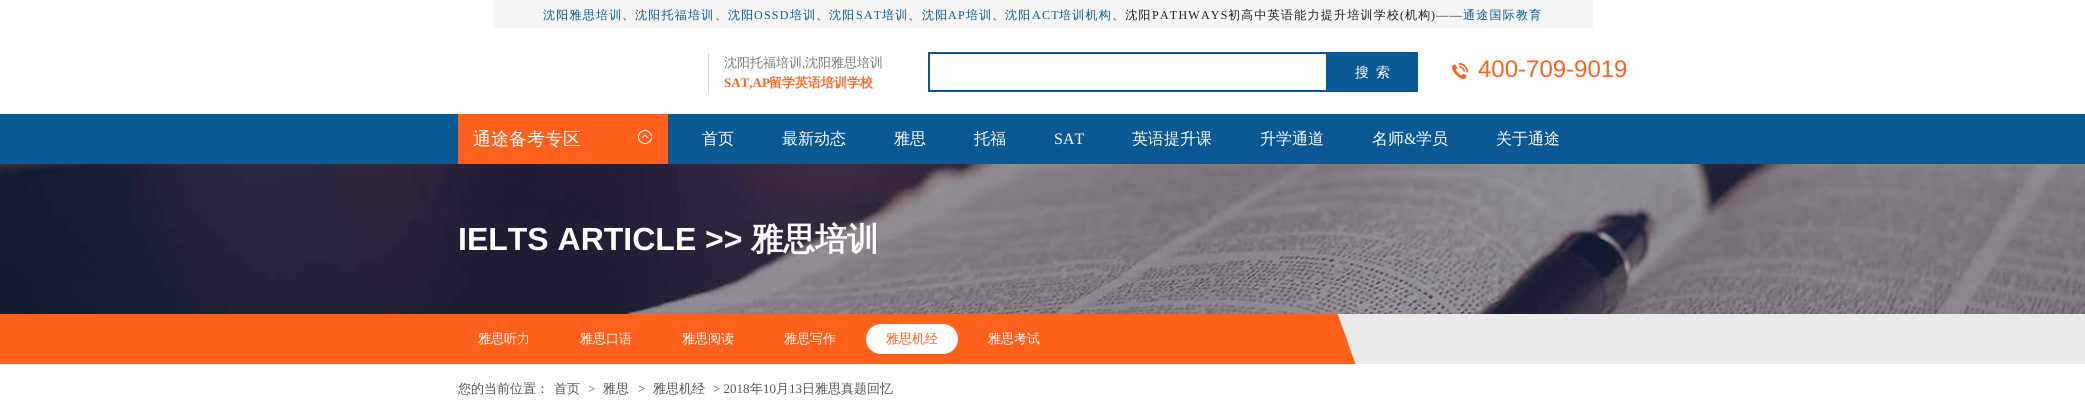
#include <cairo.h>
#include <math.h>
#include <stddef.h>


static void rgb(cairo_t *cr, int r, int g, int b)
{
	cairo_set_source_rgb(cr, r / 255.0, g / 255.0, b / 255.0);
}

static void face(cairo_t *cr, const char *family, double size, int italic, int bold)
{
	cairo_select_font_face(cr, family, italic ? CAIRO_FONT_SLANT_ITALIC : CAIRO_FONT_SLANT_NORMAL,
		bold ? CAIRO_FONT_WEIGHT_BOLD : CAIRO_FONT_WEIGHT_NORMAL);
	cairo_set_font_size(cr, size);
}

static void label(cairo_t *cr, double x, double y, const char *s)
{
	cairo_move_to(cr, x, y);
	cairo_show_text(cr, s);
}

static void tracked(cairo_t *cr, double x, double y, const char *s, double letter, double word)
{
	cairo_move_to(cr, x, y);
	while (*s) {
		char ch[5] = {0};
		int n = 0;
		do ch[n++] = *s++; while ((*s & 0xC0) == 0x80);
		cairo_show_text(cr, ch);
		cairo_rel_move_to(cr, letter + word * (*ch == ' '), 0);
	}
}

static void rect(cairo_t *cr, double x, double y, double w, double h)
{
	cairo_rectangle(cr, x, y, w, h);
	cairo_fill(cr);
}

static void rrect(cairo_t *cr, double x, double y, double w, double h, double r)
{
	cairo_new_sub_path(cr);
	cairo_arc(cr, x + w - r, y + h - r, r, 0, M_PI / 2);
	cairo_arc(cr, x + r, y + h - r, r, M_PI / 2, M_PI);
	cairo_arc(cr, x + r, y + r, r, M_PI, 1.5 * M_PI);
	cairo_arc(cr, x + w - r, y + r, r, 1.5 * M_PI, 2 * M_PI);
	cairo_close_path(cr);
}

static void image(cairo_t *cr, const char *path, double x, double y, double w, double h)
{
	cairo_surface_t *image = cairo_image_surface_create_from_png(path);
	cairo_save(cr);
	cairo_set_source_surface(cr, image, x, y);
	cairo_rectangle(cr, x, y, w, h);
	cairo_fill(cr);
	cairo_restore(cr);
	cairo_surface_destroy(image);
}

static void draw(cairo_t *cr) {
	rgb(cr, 255, 255, 255);
	cairo_paint(cr);
	rgb(cr, 245, 245, 245);
	rect(cr, 493, 0, 1100, 28);
	face(cr, "WenQuanYi Zen Hei Medium", 12, 0, 0);
	rgb(cr, 10, 89, 148);
	tracked(cr, 543, 19, "沈阳雅思培训", 1.25, 0);
	rgb(cr, 31, 31, 31);
	tracked(cr, 622, 19, "、", 1.25, 0);
	rgb(cr, 10, 89, 148);
	tracked(cr, 635, 19, "沈阳托福培训", 1.25, 0);
	rgb(cr, 31, 31, 31);
	tracked(cr, 715, 19, "、", 1.25, 0);
	rgb(cr, 10, 89, 148);
	tracked(cr, 728, 19, "沈阳", 1.25, 0);
	face(cr, "Liberation Serif", 12, 0, 0);
	tracked(cr, 754, 19, "OSSD", 1.25, 0);
	face(cr, "WenQuanYi Zen Hei Medium", 12, 0, 0);
	tracked(cr, 790, 19, "培训", 1.25, 0);
	rgb(cr, 31, 31, 31);
	tracked(cr, 816, 19, "、", 1.25, 0);
	rgb(cr, 10, 89, 148);
	tracked(cr, 829, 19, "沈阳", 1.25, 0);
	face(cr, "Liberation Serif", 12, 0, 0);
	tracked(cr, 856, 19, "SAT", 1.25, 0);
	face(cr, "WenQuanYi Zen Hei Medium", 12, 0, 0);
	tracked(cr, 882, 19, "培训", 1.25, 0);
	rgb(cr, 31, 31, 31);
	tracked(cr, 908, 19, "、", 1.25, 0);
	rgb(cr, 10, 89, 148);
	tracked(cr, 922, 19, "沈阳", 1.25, 0);
	face(cr, "Liberation Serif", 12, 0, 0);
	tracked(cr, 948, 19, "AP", 1.25, 0);
	face(cr, "WenQuanYi Zen Hei Medium", 12, 0, 0);
	tracked(cr, 966, 19, "培训", 1.25, 0);
	rgb(cr, 31, 31, 31);
	tracked(cr, 992, 19, "、", 1.25, 0);
	rgb(cr, 10, 89, 148);
	tracked(cr, 1005, 19, "沈阳", 1.25, 0);
	face(cr, "Liberation Serif", 12, 0, 0);
	tracked(cr, 1032, 19, "ACT", 1.25, 0);
	face(cr, "WenQuanYi Zen Hei Medium", 12, 0, 0);
	tracked(cr, 1059, 19, "培训机构", 1.25, 0);
	rgb(cr, 31, 31, 31);
	tracked(cr, 1112, 19, "、沈阳", 1.25, 0);
	face(cr, "Liberation Serif", 12, 0, 0);
	tracked(cr, 1152, 19, "PATHWAYS", 1.25, 0);
	face(cr, "WenQuanYi Zen Hei Medium", 12, 0, 0);
	tracked(cr, 1228, 19, "初高中英语能力提升培训学校", 1.25, 0);
	face(cr, "Liberation Serif", 12, 0, 0);
	tracked(cr, 1400, 19, "(", 1.25, 0);
	face(cr, "WenQuanYi Zen Hei Medium", 12, 0, 0);
	tracked(cr, 1405, 19, "机构", 1.25, 0);
	face(cr, "Liberation Serif", 12, 0, 0);
	tracked(cr, 1431, 19, ")——", 1.25, 0);
	face(cr, "WenQuanYi Zen Hei Medium", 12, 0, 0);
	rgb(cr, 10, 89, 148);
	tracked(cr, 1463, 19, "通途国际教育", 1.25, 0);
	rgb(cr, 213, 213, 213);
	rect(cr, 708, 53, 1, 40);
	face(cr, "WenQuanYi Zen Hei Medium", 13, 0, 0);
	rgb(cr, 119, 119, 119);
	label(cr, 724, 67, "沈阳托福培训");
	face(cr, "Liberation Serif", 13, 0, 0);
	label(cr, 802, 67, ",");
	face(cr, "WenQuanYi Zen Hei Medium", 13, 0, 0);
	label(cr, 805, 67, "沈阳雅思培训");
	face(cr, "Liberation Serif", 13, 0, 1);
	rgb(cr, 255, 97, 28);
	label(cr, 724, 87, "SAT,AP");
	face(cr, "WenQuanYi Zen Hei", 13, 0, 1);
	label(cr, 769, 87, "留学英语培训学校");
	cairo_rectangle(cr, 929, 53, 398, 38);
	rgb(cr, 10, 89, 148);
	cairo_stroke(cr);
	rect(cr, 1328, 52, 90, 40);
	face(cr, "WenQuanYi Zen Hei Medium", 14, 0, 0);
	rgb(cr, 255, 255, 255);
	label(cr, 1355, 77, "搜");
	label(cr, 1376, 77, "索");
	image(cr, "image0.png", 1452, 63, 16, 16);
	face(cr, "Liberation Sans", 24, 0, 0);
	rgb(cr, 255, 97, 28);
	label(cr, 1478, 77, "400-709-9019");
	rgb(cr, 10, 89, 148);
	rect(cr, 0, 114, 2085, 50);
	rgb(cr, 255, 97, 28);
	rect(cr, 458, 114, 210, 50);
	face(cr, "WenQuanYi Zen Hei Medium", 18, 0, 0);
	rgb(cr, 255, 255, 255);
	label(cr, 473, 145, "通途备考专区");
	image(cr, "image1.png", 638, 130, 14, 14);
	face(cr, "WenQuanYi Zen Hei Medium", 16, 0, 0);
	label(cr, 702, 144, "首页");
	label(cr, 782, 144, "最新动态");
	label(cr, 894, 144, "雅思");
	label(cr, 974, 144, "托福");
	face(cr, "Liberation Serif", 16, 0, 0);
	label(cr, 1054, 144, "SAT");
	face(cr, "WenQuanYi Zen Hei Medium", 16, 0, 0);
	label(cr, 1132, 144, "英语提升课");
	label(cr, 1260, 144, "升学通道");
	label(cr, 1372, 144, "名师");
	face(cr, "Liberation Serif", 16, 0, 0);
	label(cr, 1404, 144, "&");
	face(cr, "WenQuanYi Zen Hei Medium", 16, 0, 0);
	label(cr, 1416, 144, "学员");
	label(cr, 1496, 144, "关于通途");
	image(cr, "image2.png", 0, 164, 2085, 150);
	face(cr, "Liberation Sans", 32, 0, 1);
	label(cr, 458, 250, "IELTS ARTICLE >>");
	face(cr, "WenQuanYi Zen Hei", 32, 0, 1);
	label(cr, 751, 250, "雅思培训");
	rgb(cr, 234, 234, 234);
	rect(cr, 1337, 314, 748, 50);
	image(cr, "image3.png", 0, 314, 1355, 50);
	face(cr, "WenQuanYi Zen Hei Medium", 13, 0, 0);
	rgb(cr, 255, 255, 255);
	label(cr, 478, 343, "雅思听力");
	label(cr, 580, 343, "雅思口语");
	label(cr, 682, 343, "雅思阅读");
	label(cr, 784, 343, "雅思写作");
	rrect(cr, 866, 324, 92, 30, 15);
	cairo_fill(cr);
	rgb(cr, 255, 97, 28);
	label(cr, 886, 343, "雅思机经");
	rgb(cr, 255, 255, 255);
	label(cr, 988, 343, "雅思考试");
	rgb(cr, 85, 85, 85);
	label(cr, 458, 393, "您的当前位置：");
	label(cr, 554, 393, "首页");
	face(cr, "Liberation Serif", 13, 0, 0);
	label(cr, 588, 393, ">");
	face(cr, "WenQuanYi Zen Hei Medium", 13, 0, 0);
	label(cr, 603, 393, "雅思");
	face(cr, "Liberation Serif", 13, 0, 0);
	label(cr, 638, 393, ">");
	face(cr, "WenQuanYi Zen Hei Medium", 13, 0, 0);
	label(cr, 653, 393, "雅思机经");
	face(cr, "Liberation Serif", 13, 0, 0);
	label(cr, 713, 393, "> 2018");
	face(cr, "WenQuanYi Zen Hei Medium", 13, 0, 0);
	label(cr, 750, 393, "年");
	face(cr, "Liberation Serif", 13, 0, 0);
	label(cr, 763, 393, "10");
	face(cr, "WenQuanYi Zen Hei Medium", 13, 0, 0);
	label(cr, 776, 393, "月");
	face(cr, "Liberation Serif", 13, 0, 0);
	label(cr, 789, 393, "13");
	face(cr, "WenQuanYi Zen Hei Medium", 13, 0, 0);
	label(cr, 802, 393, "日雅思真题回忆");
}

int main(void) {
	cairo_surface_t *surface = cairo_image_surface_create(CAIRO_FORMAT_RGB24, 2085, 406);
	cairo_t *cr = cairo_create(surface);
	cairo_font_options_t *options = cairo_font_options_create();
	cairo_font_options_set_hint_metrics(options, CAIRO_HINT_METRICS_OFF);
	cairo_font_options_set_hint_style(options, CAIRO_HINT_STYLE_NONE);
	cairo_set_font_options(cr, options);
	cairo_set_miter_limit(cr, 4);
	draw(cr);
	cairo_surface_write_to_png(surface, "render.png");
	cairo_font_options_destroy(options);
	cairo_destroy(cr);
	cairo_surface_destroy(surface);
	return 0;
}
